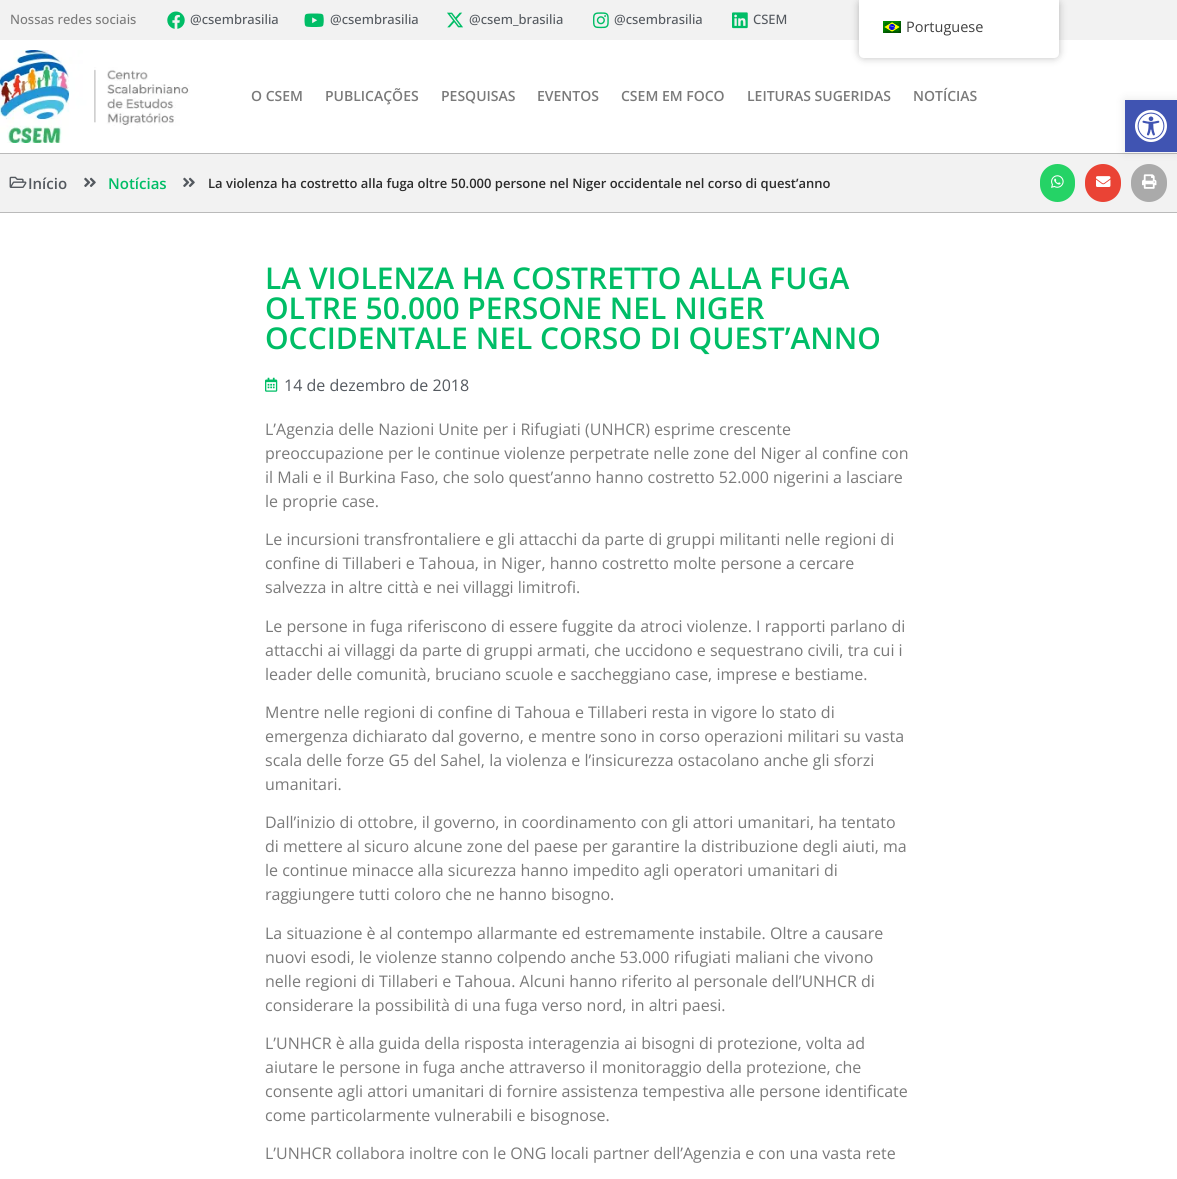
#include <cairo.h>
#include <math.h>
#include <stddef.h>


static void rgb(cairo_t *cr, int r, int g, int b)
{
	cairo_set_source_rgb(cr, r / 255.0, g / 255.0, b / 255.0);
}

static void face(cairo_t *cr, const char *family, double size, int italic, int bold)
{
	cairo_select_font_face(cr, family, italic ? CAIRO_FONT_SLANT_ITALIC : CAIRO_FONT_SLANT_NORMAL,
		bold ? CAIRO_FONT_WEIGHT_BOLD : CAIRO_FONT_WEIGHT_NORMAL);
	cairo_set_font_size(cr, size);
}

static void label(cairo_t *cr, double x, double y, const char *s)
{
	cairo_move_to(cr, x, y);
	cairo_show_text(cr, s);
}

static void rect(cairo_t *cr, double x, double y, double w, double h)
{
	cairo_rectangle(cr, x, y, w, h);
	cairo_fill(cr);
}

static void rrect(cairo_t *cr, double x, double y, double w, double h, double r)
{
	cairo_new_sub_path(cr);
	cairo_arc(cr, x + w - r, y + h - r, r, 0, M_PI / 2);
	cairo_arc(cr, x + r, y + h - r, r, M_PI / 2, M_PI);
	cairo_arc(cr, x + r, y + r, r, M_PI, 1.5 * M_PI);
	cairo_arc(cr, x + w - r, y + r, r, 1.5 * M_PI, 2 * M_PI);
	cairo_close_path(cr);
}

static void soft_shadow(cairo_t *cr, double x, double y, double w, double h, double r, double blur, double alpha)
{
	cairo_push_group_with_content(cr, CAIRO_CONTENT_ALPHA);
	cairo_set_operator(cr, CAIRO_OPERATOR_SOURCE);
	for (int i = 15; i >= -15 && fmin(w, h) + blur * i / 3 > 0; i -= 2) {
		double e = blur * i / 6;
		cairo_set_source_rgba(cr, 0, 0, 0, alpha * erfc((i - 1) / 8.5) / 2);
		rrect(cr, x - e, y - e, w + 2 * e, h + 2 * e, fmax(0, fmin(r + e + blur * .6, fmin(w, h) / 2 + e)));
		cairo_fill(cr);
	}
	cairo_pattern_t *soft = cairo_pop_group(cr);
	cairo_mask(cr, soft);
	cairo_pattern_destroy(soft);
}

static void image(cairo_t *cr, const char *path, double x, double y, double w, double h)
{
	cairo_surface_t *image = cairo_image_surface_create_from_png(path);
	cairo_save(cr);
	cairo_set_source_surface(cr, image, x, y);
	cairo_rectangle(cr, x, y, w, h);
	cairo_fill(cr);
	cairo_restore(cr);
	cairo_surface_destroy(image);
}

static void draw(cairo_t *cr) {
	rgb(cr, 255, 255, 255);
	cairo_paint(cr);
	rgb(cr, 242, 242, 242);
	rect(cr, 0, 0, 1177, 40);
	face(cr, "Open Sans Medium", 13, 0, 0);
	rgb(cr, 122, 122, 122);
	label(cr, 10, 24, "Nossas redes sociais");
	image(cr, "image0.png", 167, 11, 18, 18);
	rgb(cr, 84, 89, 95);
	label(cr, 190, 24, "@csembrasilia");
	image(cr, "image1.png", 304, 13, 20, 14);
	label(cr, 330, 24, "@csembrasilia");
	image(cr, "image2.png", 447, 12, 16, 16);
	label(cr, 469, 24, "@csem_brasilia");
	image(cr, "image3.png", 593, 12, 16, 17);
	label(cr, 614, 24, "@csembrasilia");
	image(cr, "image4.png", 732, 12, 16, 17);
	label(cr, 753, 24, "CSEM");
	rgb(cr, 186, 186, 186);
	rect(cr, 0, 153, 1177, 1);
	image(cr, "image5.png", 0, 50, 190, 93);
	face(cr, "Open Sans SemiBold", 14, 0, 0);
	rgb(cr, 122, 122, 122);
	label(cr, 251, 101, "O CSEM");
	label(cr, 325, 101, "PUBLICAÇÕES");
	label(cr, 441, 101, "PESQUISAS");
	label(cr, 537, 101, "EVENTOS");
	label(cr, 621, 101, "CSEM EM FOCO");
	label(cr, 747, 101, "LEITURAS SUGERIDAS");
	label(cr, 913, 101, "NOTÍCIAS");
	rgb(cr, 0, 0, 0);
	soft_shadow(cr, 859, 0, 200, 58, 5, 4, 0.25);
	rgb(cr, 255, 255, 255);
	cairo_new_path(cr);
	cairo_move_to(cr, 859, 0);
	cairo_line_to(cr, 1059, 0);
	cairo_line_to(cr, 1059, 53);
	cairo_curve_to(cr, 1059, 56, 1057, 58, 1054, 58);
	cairo_line_to(cr, 864, 58);
	cairo_curve_to(cr, 861, 58, 859, 56, 859, 53);
	cairo_close_path(cr);
	cairo_fill(cr);
	image(cr, "image6.png", 883, 21, 18, 12);
	face(cr, "Open Sans", 14.5, 0, 0);
	rgb(cr, 64, 64, 64);
	label(cr, 906, 32, "Portuguese");
	rgb(cr, 242, 242, 242);
	rect(cr, 0, 154, 1177, 58);
	rgb(cr, 234, 67, 53);
	rrect(cr, 1085, 164, 36, 38, 18);
	cairo_fill(cr);
	rgb(cr, 170, 170, 170);
	rrect(cr, 1131, 164, 36, 38, 18);
	cairo_fill(cr);
	rgb(cr, 0, 0, 0);
	soft_shadow(cr, 1125, 100, 52, 52, 0, 5, 0.1);
	rgb(cr, 64, 84, 178);
	rect(cr, 1125, 100, 52, 52);
	image(cr, "image7.png", 1135, 110, 32, 32);
	rgb(cr, 186, 186, 186);
	rect(cr, 0, 212, 1177, 1);
	image(cr, "image8.png", 9, 176, 18, 12);
	face(cr, "Open Sans SemiBold", 15, 0, 0);
	rgb(cr, 84, 89, 95);
	label(cr, 28, 189, "Início");
	image(cr, "image9.png", 84, 177, 12, 10);
	rgb(cr, 0, 189, 102);
	label(cr, 108, 189, "Notícias");
	image(cr, "image9.png", 183, 177, 12, 10);
	face(cr, "Open Sans SemiBold", 13, 0, 0);
	rgb(cr, 44, 44, 44);
	label(cr, 208, 188, "La violenza ha costretto alla fuga oltre 50.000 persone nel Niger occidentale nel corso di quest’anno");
	rgb(cr, 37, 211, 102);
	rrect(cr, 1040, 164, 35, 38, 17.5);
	cairo_fill(cr);
	image(cr, "image10.png", 1051, 175, 13, 13);
	image(cr, "image11.png", 1096, 176, 15, 11);
	image(cr, "image12.png", 1142, 174, 15, 15);
	face(cr, "Open Sans SemiBold", 30, 0, 0);
	rgb(cr, 0, 189, 102);
	label(cr, 265, 289, "LA VIOLENZA HA COSTRETTO ALLA FUGA");
	label(cr, 265, 319, "OLTRE 50.000 PERSONE NEL NIGER");
	label(cr, 265, 349, "OCCIDENTALE NEL CORSO DI QUEST’ANNO");
	image(cr, "image13.png", 265, 377, 13, 15);
	face(cr, "Open Sans", 16, 0, 0);
	rgb(cr, 84, 89, 95);
	label(cr, 284, 391, "14 de dezembro de 2018");
	rgb(cr, 122, 122, 122);
	label(cr, 265, 435, "L’Agenzia delle Nazioni Unite per i Rifugiati (UNHCR) esprime crescente");
	label(cr, 265, 459, "preoccupazione per le continue violenze perpetrate nelle zone del Niger al confine con");
	label(cr, 265, 483, "il Mali e il Burkina Faso, che solo quest’anno hanno costretto 52.000 nigerini a lasciare");
	label(cr, 265, 507, "le proprie case.");
	label(cr, 265, 545, "Le incursioni transfrontaliere e gli attacchi da parte di gruppi militanti nelle regioni di");
	label(cr, 265, 569, "confine di Tillaberi e Tahoua, in Niger, hanno costretto molte persone a cercare");
	label(cr, 265, 593, "salvezza in altre città e nei villaggi limitrofi.");
	label(cr, 265, 632, "Le persone in fuga riferiscono di essere fuggite da atroci violenze. I rapporti parlano di");
	label(cr, 265, 656, "attacchi ai villaggi da parte di gruppi armati, che uccidono e sequestrano civili, tra cui i");
	label(cr, 265, 680, "leader delle comunità, bruciano scuole e saccheggiano case, imprese e bestiame.");
	label(cr, 265, 718, "Mentre nelle regioni di confine di Tahoua e Tillaberi resta in vigore lo stato di");
	label(cr, 265, 742, "emergenza dichiarato dal governo, e mentre sono in corso operazioni militari su vasta");
	label(cr, 265, 766, "scala delle forze G5 del Sahel, la violenza e l’insicurezza ostacolano anche gli sforzi");
	label(cr, 265, 790, "umanitari.");
	label(cr, 265, 828, "Dall’inizio di ottobre, il governo, in coordinamento con gli attori umanitari, ha tentato");
	label(cr, 265, 852, "di mettere al sicuro alcune zone del paese per garantire la distribuzione degli aiuti, ma");
	label(cr, 265, 876, "le continue minacce alla sicurezza hanno impedito agli operatori umanitari di");
	label(cr, 265, 900, "raggiungere tutti coloro che ne hanno bisogno.");
	label(cr, 265, 939, "La situazione è al contempo allarmante ed estremamente instabile. Oltre a causare");
	label(cr, 265, 963, "nuovi esodi, le violenze stanno colpendo anche 53.000 rifugiati maliani che vivono");
	label(cr, 265, 987, "nelle regioni di Tillaberi e Tahoua. Alcuni hanno riferito al personale dell’UNHCR di");
	label(cr, 265, 1011, "considerare la possibilità di una fuga verso nord, in altri paesi.");
	label(cr, 265, 1049, "L’UNHCR è alla guida della risposta interagenzia ai bisogni di protezione, volta ad");
	label(cr, 265, 1073, "aiutare le persone in fuga anche attraverso il monitoraggio della protezione, che");
	label(cr, 265, 1097, "consente agli attori umanitari di fornire assistenza tempestiva alle persone identificate");
	label(cr, 265, 1121, "come particolarmente vulnerabili e bisognose.");
	label(cr, 265, 1159, "L’UNHCR collabora inoltre con le ONG locali partner dell’Agenzia e con una vasta rete");
}

int main(void) {
	cairo_surface_t *surface = cairo_image_surface_create(CAIRO_FORMAT_RGB24, 1177, 1179);
	cairo_t *cr = cairo_create(surface);
	cairo_font_options_t *options = cairo_font_options_create();
	cairo_font_options_set_hint_metrics(options, CAIRO_HINT_METRICS_OFF);
	cairo_font_options_set_hint_style(options, CAIRO_HINT_STYLE_NONE);
	cairo_set_font_options(cr, options);
	cairo_set_miter_limit(cr, 4);
	draw(cr);
	cairo_surface_write_to_png(surface, "render.png");
	cairo_font_options_destroy(options);
	cairo_destroy(cr);
	cairo_surface_destroy(surface);
	return 0;
}
